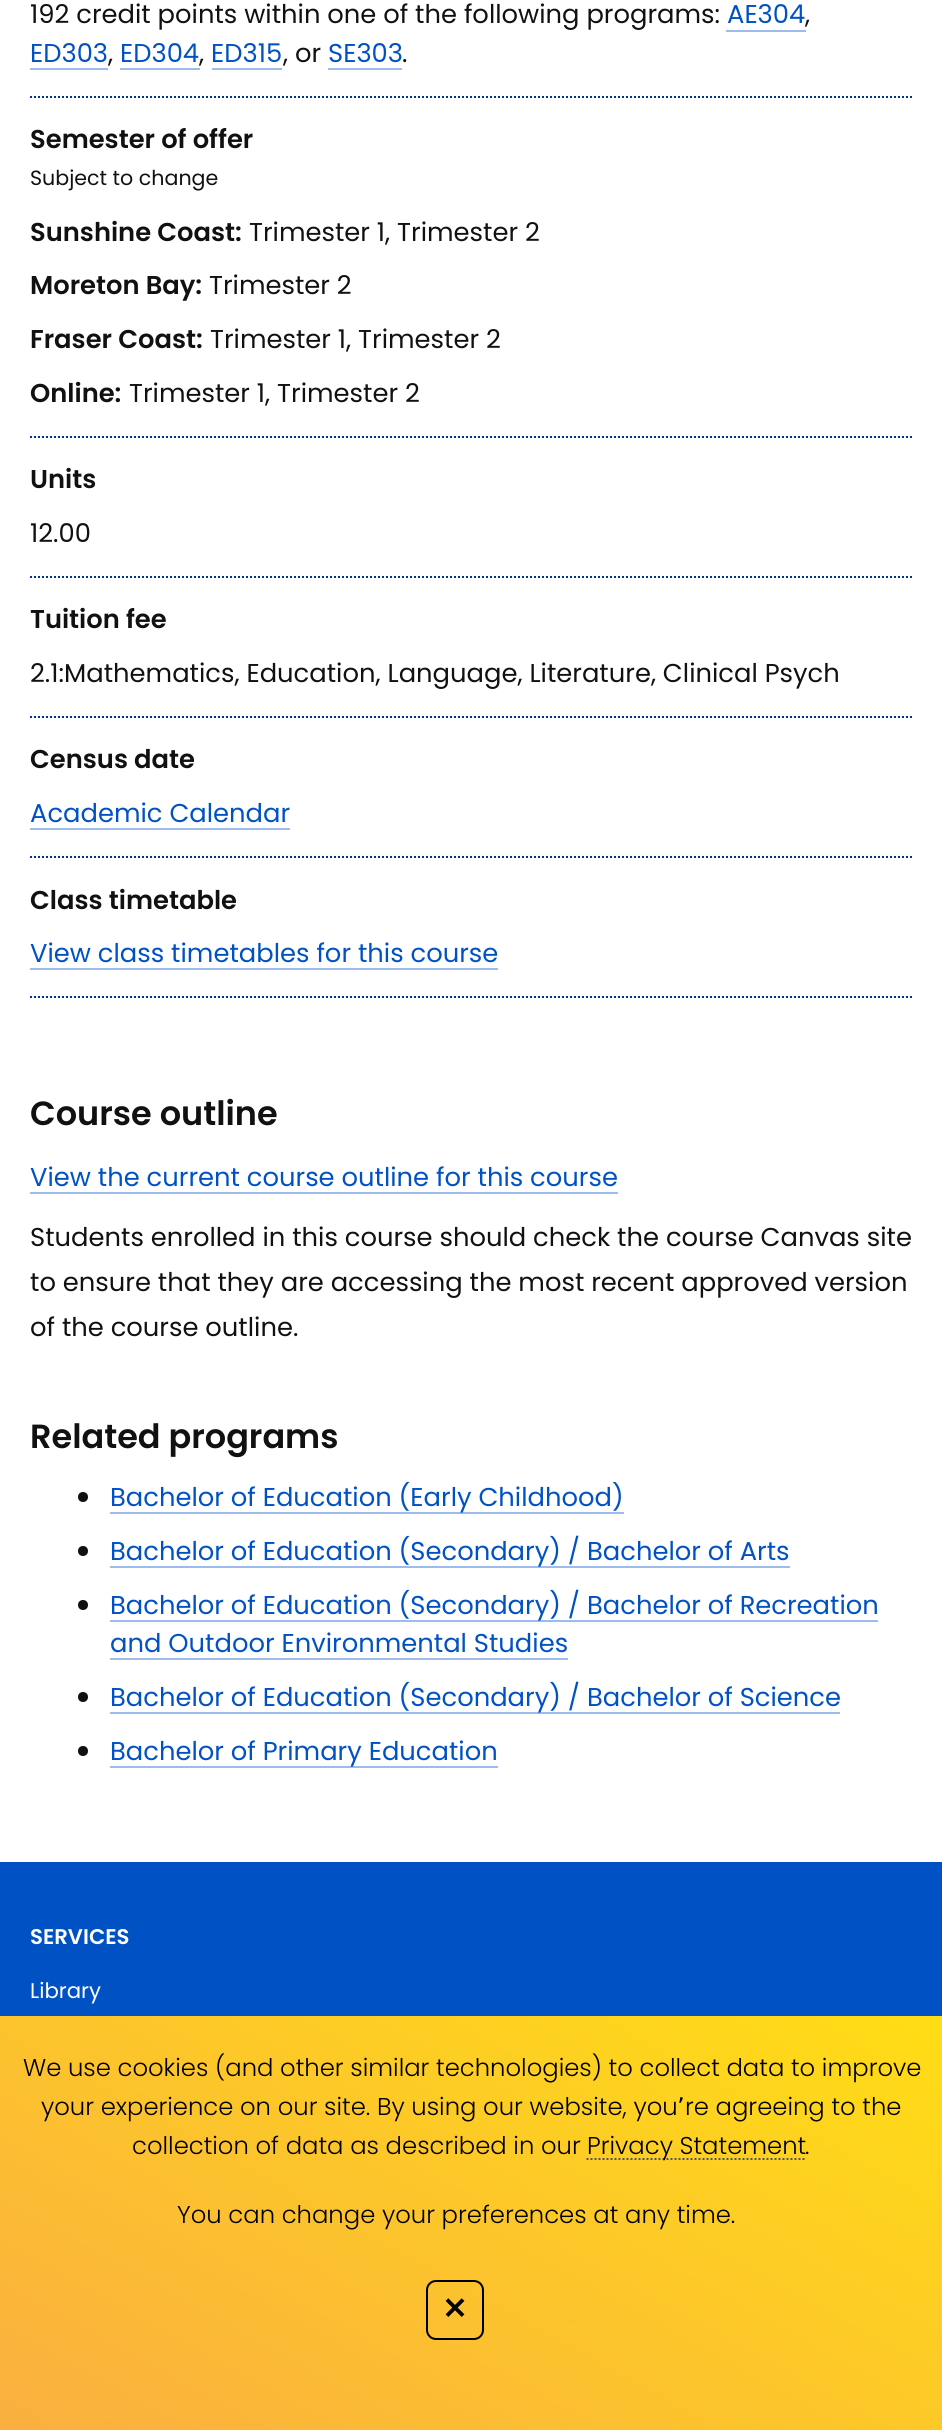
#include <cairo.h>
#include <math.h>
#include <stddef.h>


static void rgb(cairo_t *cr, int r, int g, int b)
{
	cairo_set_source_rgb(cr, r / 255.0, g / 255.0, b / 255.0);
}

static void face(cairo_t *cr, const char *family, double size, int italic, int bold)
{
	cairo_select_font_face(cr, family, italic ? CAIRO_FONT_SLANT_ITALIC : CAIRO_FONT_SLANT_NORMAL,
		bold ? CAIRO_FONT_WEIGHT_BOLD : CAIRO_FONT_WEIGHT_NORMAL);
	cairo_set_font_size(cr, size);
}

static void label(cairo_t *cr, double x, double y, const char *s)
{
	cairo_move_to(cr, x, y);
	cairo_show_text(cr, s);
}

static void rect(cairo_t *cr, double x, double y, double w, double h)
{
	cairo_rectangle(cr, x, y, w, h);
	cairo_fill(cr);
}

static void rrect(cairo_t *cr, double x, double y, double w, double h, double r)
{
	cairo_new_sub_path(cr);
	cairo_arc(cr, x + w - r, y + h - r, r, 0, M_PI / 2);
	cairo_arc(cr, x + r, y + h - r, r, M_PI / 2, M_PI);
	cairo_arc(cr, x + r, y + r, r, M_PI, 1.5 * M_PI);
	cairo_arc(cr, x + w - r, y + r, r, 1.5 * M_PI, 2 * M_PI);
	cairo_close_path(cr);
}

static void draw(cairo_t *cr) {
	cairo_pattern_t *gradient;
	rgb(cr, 255, 255, 255);
	cairo_paint(cr);
	cairo_new_path(cr);
	cairo_move_to(cr, 30, 97);
	cairo_line_to(cr, 912, 97);
	rgb(cr, 0, 46, 156);
	cairo_set_dash(cr, (double[]){2, 2}, 2, 0);
	cairo_stroke(cr);
	face(cr, "Poppins", 25.8, 0, 0);
	rgb(cr, 17, 17, 17);
	label(cr, 30, 23, "192 credit points within one of the following programs:");
	rgb(cr, 0, 82, 196);
	label(cr, 727, 23, "AE304");
	rgb(cr, 158, 188, 235);
	rect(cr, 726, 30, 80, 2);
	rgb(cr, 17, 17, 17);
	label(cr, 805, 23, ",");
	rgb(cr, 0, 82, 196);
	label(cr, 30, 62, "ED303");
	rgb(cr, 158, 188, 235);
	rect(cr, 30, 68, 78, 2);
	rgb(cr, 17, 17, 17);
	label(cr, 108, 62, ",");
	rgb(cr, 0, 82, 196);
	label(cr, 120, 62, "ED304");
	rgb(cr, 158, 188, 235);
	rect(cr, 120, 68, 80, 2);
	rgb(cr, 17, 17, 17);
	label(cr, 199, 62, ",");
	rgb(cr, 0, 82, 196);
	label(cr, 211, 62, "ED315");
	rgb(cr, 158, 188, 235);
	rect(cr, 212, 68, 70, 2);
	rgb(cr, 17, 17, 17);
	label(cr, 283, 62, ", or");
	rgb(cr, 0, 82, 196);
	label(cr, 328, 62, "SE303");
	rgb(cr, 158, 188, 235);
	rect(cr, 328, 68, 74, 2);
	rgb(cr, 17, 17, 17);
	label(cr, 402, 62, ".");
	face(cr, "Poppins SemiBold", 25.8, 0, 0);
	label(cr, 30, 148, "Semester of offer");
	face(cr, "Poppins", 20.6, 0, 0);
	label(cr, 30, 185, "Subject to change");
	cairo_new_path(cr);
	cairo_move_to(cr, 30, 437);
	cairo_line_to(cr, 912, 437);
	rgb(cr, 0, 46, 156);
	cairo_stroke(cr);
	face(cr, "Poppins SemiBold", 25.8, 0, 0);
	rgb(cr, 17, 17, 17);
	label(cr, 30, 241, "Sunshine Coast:");
	face(cr, "Poppins", 25.8, 0, 0);
	label(cr, 249, 241, "Trimester 1, Trimester 2");
	face(cr, "Poppins SemiBold", 25.8, 0, 0);
	label(cr, 30, 294, "Moreton Bay:");
	face(cr, "Poppins", 25.8, 0, 0);
	label(cr, 209, 294, "Trimester 2");
	face(cr, "Poppins SemiBold", 25.8, 0, 0);
	label(cr, 30, 348, "Fraser Coast:");
	face(cr, "Poppins", 25.8, 0, 0);
	label(cr, 210, 348, "Trimester 1, Trimester 2");
	face(cr, "Poppins SemiBold", 25.8, 0, 0);
	label(cr, 30, 402, "Online:");
	face(cr, "Poppins", 25.8, 0, 0);
	label(cr, 129, 402, "Trimester 1, Trimester 2");
	face(cr, "Poppins SemiBold", 25.8, 0, 0);
	label(cr, 30, 488, "Units");
	cairo_new_path(cr);
	cairo_move_to(cr, 30, 577);
	cairo_line_to(cr, 912, 577);
	rgb(cr, 0, 46, 156);
	cairo_stroke(cr);
	face(cr, "Poppins", 25.8, 0, 0);
	rgb(cr, 17, 17, 17);
	label(cr, 30, 542, "12.00");
	face(cr, "Poppins SemiBold", 25.8, 0, 0);
	label(cr, 30, 628, "Tuition fee");
	cairo_new_path(cr);
	cairo_move_to(cr, 30, 717);
	cairo_line_to(cr, 912, 717);
	rgb(cr, 0, 46, 156);
	cairo_stroke(cr);
	face(cr, "Poppins", 25.8, 0, 0);
	rgb(cr, 17, 17, 17);
	label(cr, 30, 682, "2.1:Mathematics, Education, Language, Literature, Clinical Psych");
	face(cr, "Poppins SemiBold", 25.8, 0, 0);
	label(cr, 30, 768, "Census date");
	cairo_new_path(cr);
	cairo_move_to(cr, 30, 857);
	cairo_line_to(cr, 912, 857);
	rgb(cr, 0, 46, 156);
	cairo_stroke(cr);
	face(cr, "Poppins", 25.8, 0, 0);
	rgb(cr, 0, 82, 196);
	label(cr, 30, 822, "Academic Calendar");
	rgb(cr, 158, 188, 235);
	rect(cr, 30, 828, 260, 2);
	face(cr, "Poppins SemiBold", 25.8, 0, 0);
	rgb(cr, 17, 17, 17);
	label(cr, 30, 909, "Class timetable");
	cairo_new_path(cr);
	cairo_move_to(cr, 30, 997);
	cairo_line_to(cr, 912, 997);
	rgb(cr, 0, 46, 156);
	cairo_stroke(cr);
	face(cr, "Poppins", 25.8, 0, 0);
	rgb(cr, 0, 82, 196);
	label(cr, 30, 962, "View class timetables for this course");
	rgb(cr, 158, 188, 235);
	rect(cr, 30, 968, 468, 2);
	face(cr, "Poppins SemiBold", 33.5, 0, 0);
	rgb(cr, 17, 17, 17);
	label(cr, 30, 1125, "Course outline");
	face(cr, "Poppins", 25.8, 0, 0);
	rgb(cr, 0, 82, 196);
	label(cr, 30, 1186, "View the current course outline for this course");
	rgb(cr, 158, 188, 235);
	rect(cr, 30, 1192, 588, 2);
	rgb(cr, 17, 17, 17);
	label(cr, 30, 1246, "Students enrolled in this course should check the course Canvas site");
	label(cr, 30, 1291, "to ensure that they are accessing the most recent approved version");
	label(cr, 30, 1336, "of the course outline.");
	face(cr, "Poppins SemiBold", 33.5, 0, 0);
	label(cr, 30, 1448, "Related programs");
	cairo_new_path(cr);
	cairo_arc(cr, 83, 1497, 5, 0, 2 * M_PI);
	cairo_fill(cr);
	rgb(cr, 158, 188, 235);
	rect(cr, 110, 1512, 514, 2);
	face(cr, "Poppins", 25.8, 0, 0);
	rgb(cr, 0, 82, 196);
	label(cr, 110, 1506, "Bachelor of Education (Early Childhood)");
	rgb(cr, 17, 17, 17);
	cairo_new_path(cr);
	cairo_arc(cr, 83, 1551, 5, 0, 2 * M_PI);
	cairo_fill(cr);
	rgb(cr, 158, 188, 235);
	rect(cr, 110, 1566, 680, 2);
	rgb(cr, 0, 82, 196);
	label(cr, 110, 1560, "Bachelor of Education (Secondary) / Bachelor of Arts");
	rgb(cr, 17, 17, 17);
	cairo_new_path(cr);
	cairo_arc(cr, 83, 1605, 5, 0, 2 * M_PI);
	cairo_fill(cr);
	rgb(cr, 158, 188, 235);
	rect(cr, 110, 1620, 768, 2);
	rgb(cr, 0, 82, 196);
	label(cr, 110, 1614, "Bachelor of Education (Secondary) / Bachelor of Recreation");
	label(cr, 110, 1652, "and Outdoor Environmental Studies");
	rgb(cr, 158, 188, 235);
	rect(cr, 110, 1658, 458, 2);
	rgb(cr, 17, 17, 17);
	cairo_new_path(cr);
	cairo_arc(cr, 83, 1697, 5, 0, 2 * M_PI);
	cairo_fill(cr);
	rgb(cr, 158, 188, 235);
	rect(cr, 110, 1712, 730, 2);
	rgb(cr, 0, 82, 196);
	label(cr, 110, 1706, "Bachelor of Education (Secondary) / Bachelor of Science");
	rgb(cr, 17, 17, 17);
	cairo_new_path(cr);
	cairo_arc(cr, 83, 1751, 5, 0, 2 * M_PI);
	cairo_fill(cr);
	rgb(cr, 158, 188, 235);
	rect(cr, 110, 1766, 388, 2);
	rgb(cr, 0, 82, 196);
	label(cr, 110, 1760, "Bachelor of Primary Education");
	rect(cr, 0, 1862, 942, 154);
	face(cr, "Poppins SemiBold", 21.25, 0, 0);
	rgb(cr, 255, 255, 255);
	label(cr, 30, 1944, "SERVICES");
	face(cr, "Poppins", 21.25, 0, 0);
	label(cr, 30, 1998, "Library");
	gradient = cairo_pattern_create_linear(670, 1865, 272, 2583);
	cairo_pattern_add_color_stop_rgba(gradient, 0, 1, 0.867, 0.082, 1);
	cairo_pattern_add_color_stop_rgba(gradient, 1, 0.98, 0.686, 0.251, 1);
	cairo_set_source(cr, gradient);
	cairo_pattern_destroy(gradient);
	rect(cr, 0, 2016, 942, 414);
	face(cr, "Poppins Light", 24.3, 0, 0);
	rgb(cr, 0, 0, 0);
	label(cr, 23, 2076, "We use cookies (and other similar technologies) to collect data to improve");
	label(cr, 41, 2115, "your experience on our site. By using our website, you");
	face(cr, "DejaVu Sans", 24.3, 0, 0);
	label(cr, 677, 2115, "՚");
	face(cr, "Poppins Light", 24.3, 0, 0);
	label(cr, 685, 2115, "re agreeing to the");
	label(cr, 132, 2154, "collection of data as described in our");
	cairo_new_path(cr);
	cairo_move_to(cr, 586.5, 2159);
	cairo_line_to(cr, 805.5, 2159);
	rgb(cr, 85, 85, 85);
	cairo_stroke(cr);
	rgb(cr, 0, 0, 0);
	label(cr, 587, 2154, "Privacy Statement");
	label(cr, 805, 2154, ".");
	label(cr, 177, 2223, "You can change your preferences at any time.");
	rrect(cr, 427, 2281, 56, 58, 9);
	cairo_set_dash(cr, NULL, 0, 0);
	cairo_stroke(cr);
	face(cr, "DejaVu Sans", 30, 0, 1);
	label(cr, 442, 2319, "✕");
}

int main(void) {
	cairo_surface_t *surface = cairo_image_surface_create(CAIRO_FORMAT_RGB24, 942, 2430);
	cairo_t *cr = cairo_create(surface);
	cairo_font_options_t *options = cairo_font_options_create();
	cairo_font_options_set_hint_metrics(options, CAIRO_HINT_METRICS_OFF);
	cairo_font_options_set_hint_style(options, CAIRO_HINT_STYLE_NONE);
	cairo_set_font_options(cr, options);
	cairo_set_miter_limit(cr, 4);
	draw(cr);
	cairo_surface_write_to_png(surface, "render.png");
	cairo_font_options_destroy(options);
	cairo_destroy(cr);
	cairo_surface_destroy(surface);
	return 0;
}
